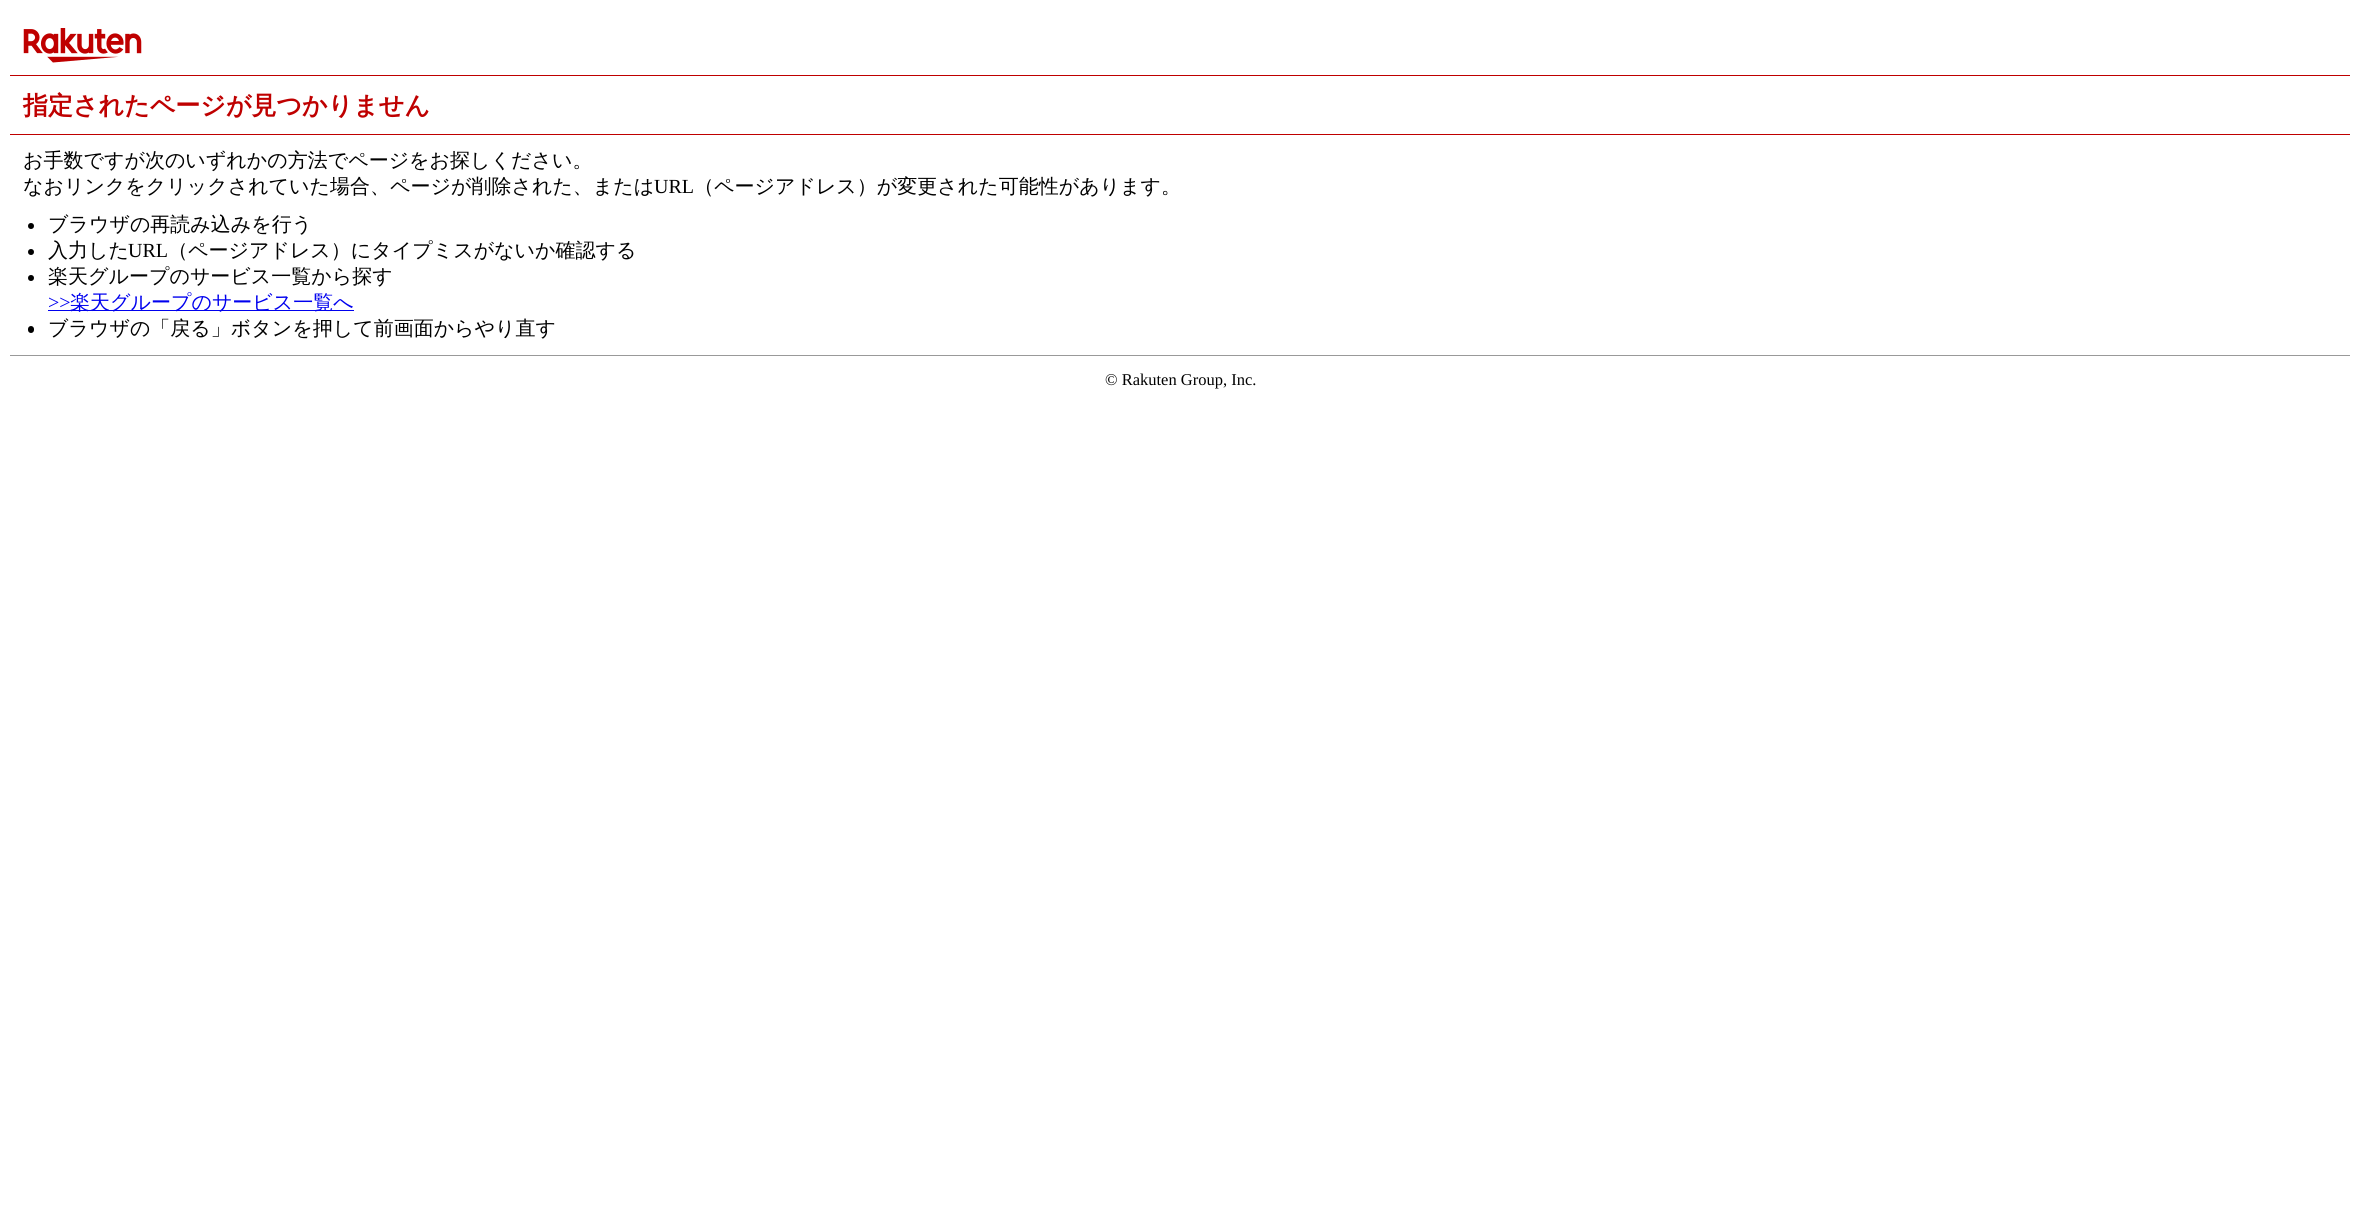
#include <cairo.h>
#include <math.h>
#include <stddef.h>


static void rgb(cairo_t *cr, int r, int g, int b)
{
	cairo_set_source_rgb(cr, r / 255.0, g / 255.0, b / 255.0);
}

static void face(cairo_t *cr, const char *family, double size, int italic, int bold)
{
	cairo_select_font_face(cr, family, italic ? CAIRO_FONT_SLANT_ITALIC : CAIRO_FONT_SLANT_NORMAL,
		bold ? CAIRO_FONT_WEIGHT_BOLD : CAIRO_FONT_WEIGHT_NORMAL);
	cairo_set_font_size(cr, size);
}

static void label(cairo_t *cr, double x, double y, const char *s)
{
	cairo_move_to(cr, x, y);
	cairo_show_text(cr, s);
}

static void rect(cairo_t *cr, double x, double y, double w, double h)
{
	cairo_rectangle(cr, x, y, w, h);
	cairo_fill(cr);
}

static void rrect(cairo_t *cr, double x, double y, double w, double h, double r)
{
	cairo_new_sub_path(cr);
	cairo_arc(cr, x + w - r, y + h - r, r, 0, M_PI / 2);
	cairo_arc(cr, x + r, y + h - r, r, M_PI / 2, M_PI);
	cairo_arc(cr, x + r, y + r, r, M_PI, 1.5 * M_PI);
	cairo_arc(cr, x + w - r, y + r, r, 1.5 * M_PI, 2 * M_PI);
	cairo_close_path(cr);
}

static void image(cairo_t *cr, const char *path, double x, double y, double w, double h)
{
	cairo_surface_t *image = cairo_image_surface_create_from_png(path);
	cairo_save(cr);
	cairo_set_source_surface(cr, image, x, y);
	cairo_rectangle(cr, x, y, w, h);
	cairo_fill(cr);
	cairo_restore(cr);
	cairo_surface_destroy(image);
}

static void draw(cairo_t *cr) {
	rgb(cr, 255, 255, 255);
	cairo_paint(cr);
	image(cr, "image0.png", 23, 28, 119, 35);
	rgb(cr, 191, 0, 0);
	rect(cr, 10, 75, 2340, 1);
	face(cr, "WenQuanYi Zen Hei", 25, 0, 1);
	label(cr, 23, 114, "指定されたページが見つかりません");
	rect(cr, 10, 134, 2340, 1);
	face(cr, "WenQuanYi Zen Hei Medium", 20, 0, 0);
	rgb(cr, 0, 0, 0);
	label(cr, 23, 167, "お手数ですが次のいずれかの方法でページをお探しください。");
	label(cr, 23, 193, "なおリンクをクリックされていた場合、ページが削除された、または");
	face(cr, "Liberation Serif", 20, 0, 0);
	label(cr, 654, 193, "URL");
	face(cr, "WenQuanYi Zen Hei Medium", 20, 0, 0);
	label(cr, 694, 193, "（ページアドレス）が変更された可能性があります。");
	cairo_new_path(cr);
	cairo_arc(cr, 31, 226, 3, 0, 2 * M_PI);
	cairo_fill(cr);
	label(cr, 48, 231, "ブラウザの再読み込みを行う");
	cairo_new_path(cr);
	cairo_arc(cr, 31, 252, 3, 0, 2 * M_PI);
	cairo_fill(cr);
	label(cr, 48, 257, "入力した");
	face(cr, "Liberation Serif", 20, 0, 0);
	label(cr, 128, 257, "URL");
	face(cr, "WenQuanYi Zen Hei Medium", 20, 0, 0);
	label(cr, 168, 257, "（ページアドレス）にタイプミスがないか確認する");
	cairo_new_path(cr);
	cairo_arc(cr, 31, 278, 3, 0, 2 * M_PI);
	cairo_fill(cr);
	label(cr, 48, 283, "楽天グループのサービス一覧から探す");
	face(cr, "Liberation Serif", 20, 0, 0);
	rgb(cr, 0, 0, 238);
	label(cr, 48, 309, ">>");
	rect(cr, 48, 310, 306, 1);
	face(cr, "WenQuanYi Zen Hei Medium", 20, 0, 0);
	label(cr, 70, 309, "楽天グループのサービス一覧へ");
	rgb(cr, 0, 0, 0);
	rrect(cr, 28, 326, 6, 7, 3);
	cairo_fill(cr);
	label(cr, 48, 335, "ブラウザの「戻る」ボタンを押して前画面からやり直す");
	rgb(cr, 153, 153, 153);
	rect(cr, 10, 355, 2340, 1);
	face(cr, "Liberation Serif", 16.5, 0, 0);
	rgb(cr, 0, 0, 0);
	label(cr, 1105, 385, "© Rakuten Group, Inc.");
}

int main(void) {
	cairo_surface_t *surface = cairo_image_surface_create(CAIRO_FORMAT_RGB24, 2360, 1220);
	cairo_t *cr = cairo_create(surface);
	cairo_font_options_t *options = cairo_font_options_create();
	cairo_font_options_set_hint_metrics(options, CAIRO_HINT_METRICS_OFF);
	cairo_font_options_set_hint_style(options, CAIRO_HINT_STYLE_NONE);
	cairo_set_font_options(cr, options);
	cairo_set_miter_limit(cr, 4);
	draw(cr);
	cairo_surface_write_to_png(surface, "render.png");
	cairo_font_options_destroy(options);
	cairo_destroy(cr);
	cairo_surface_destroy(surface);
	return 0;
}
